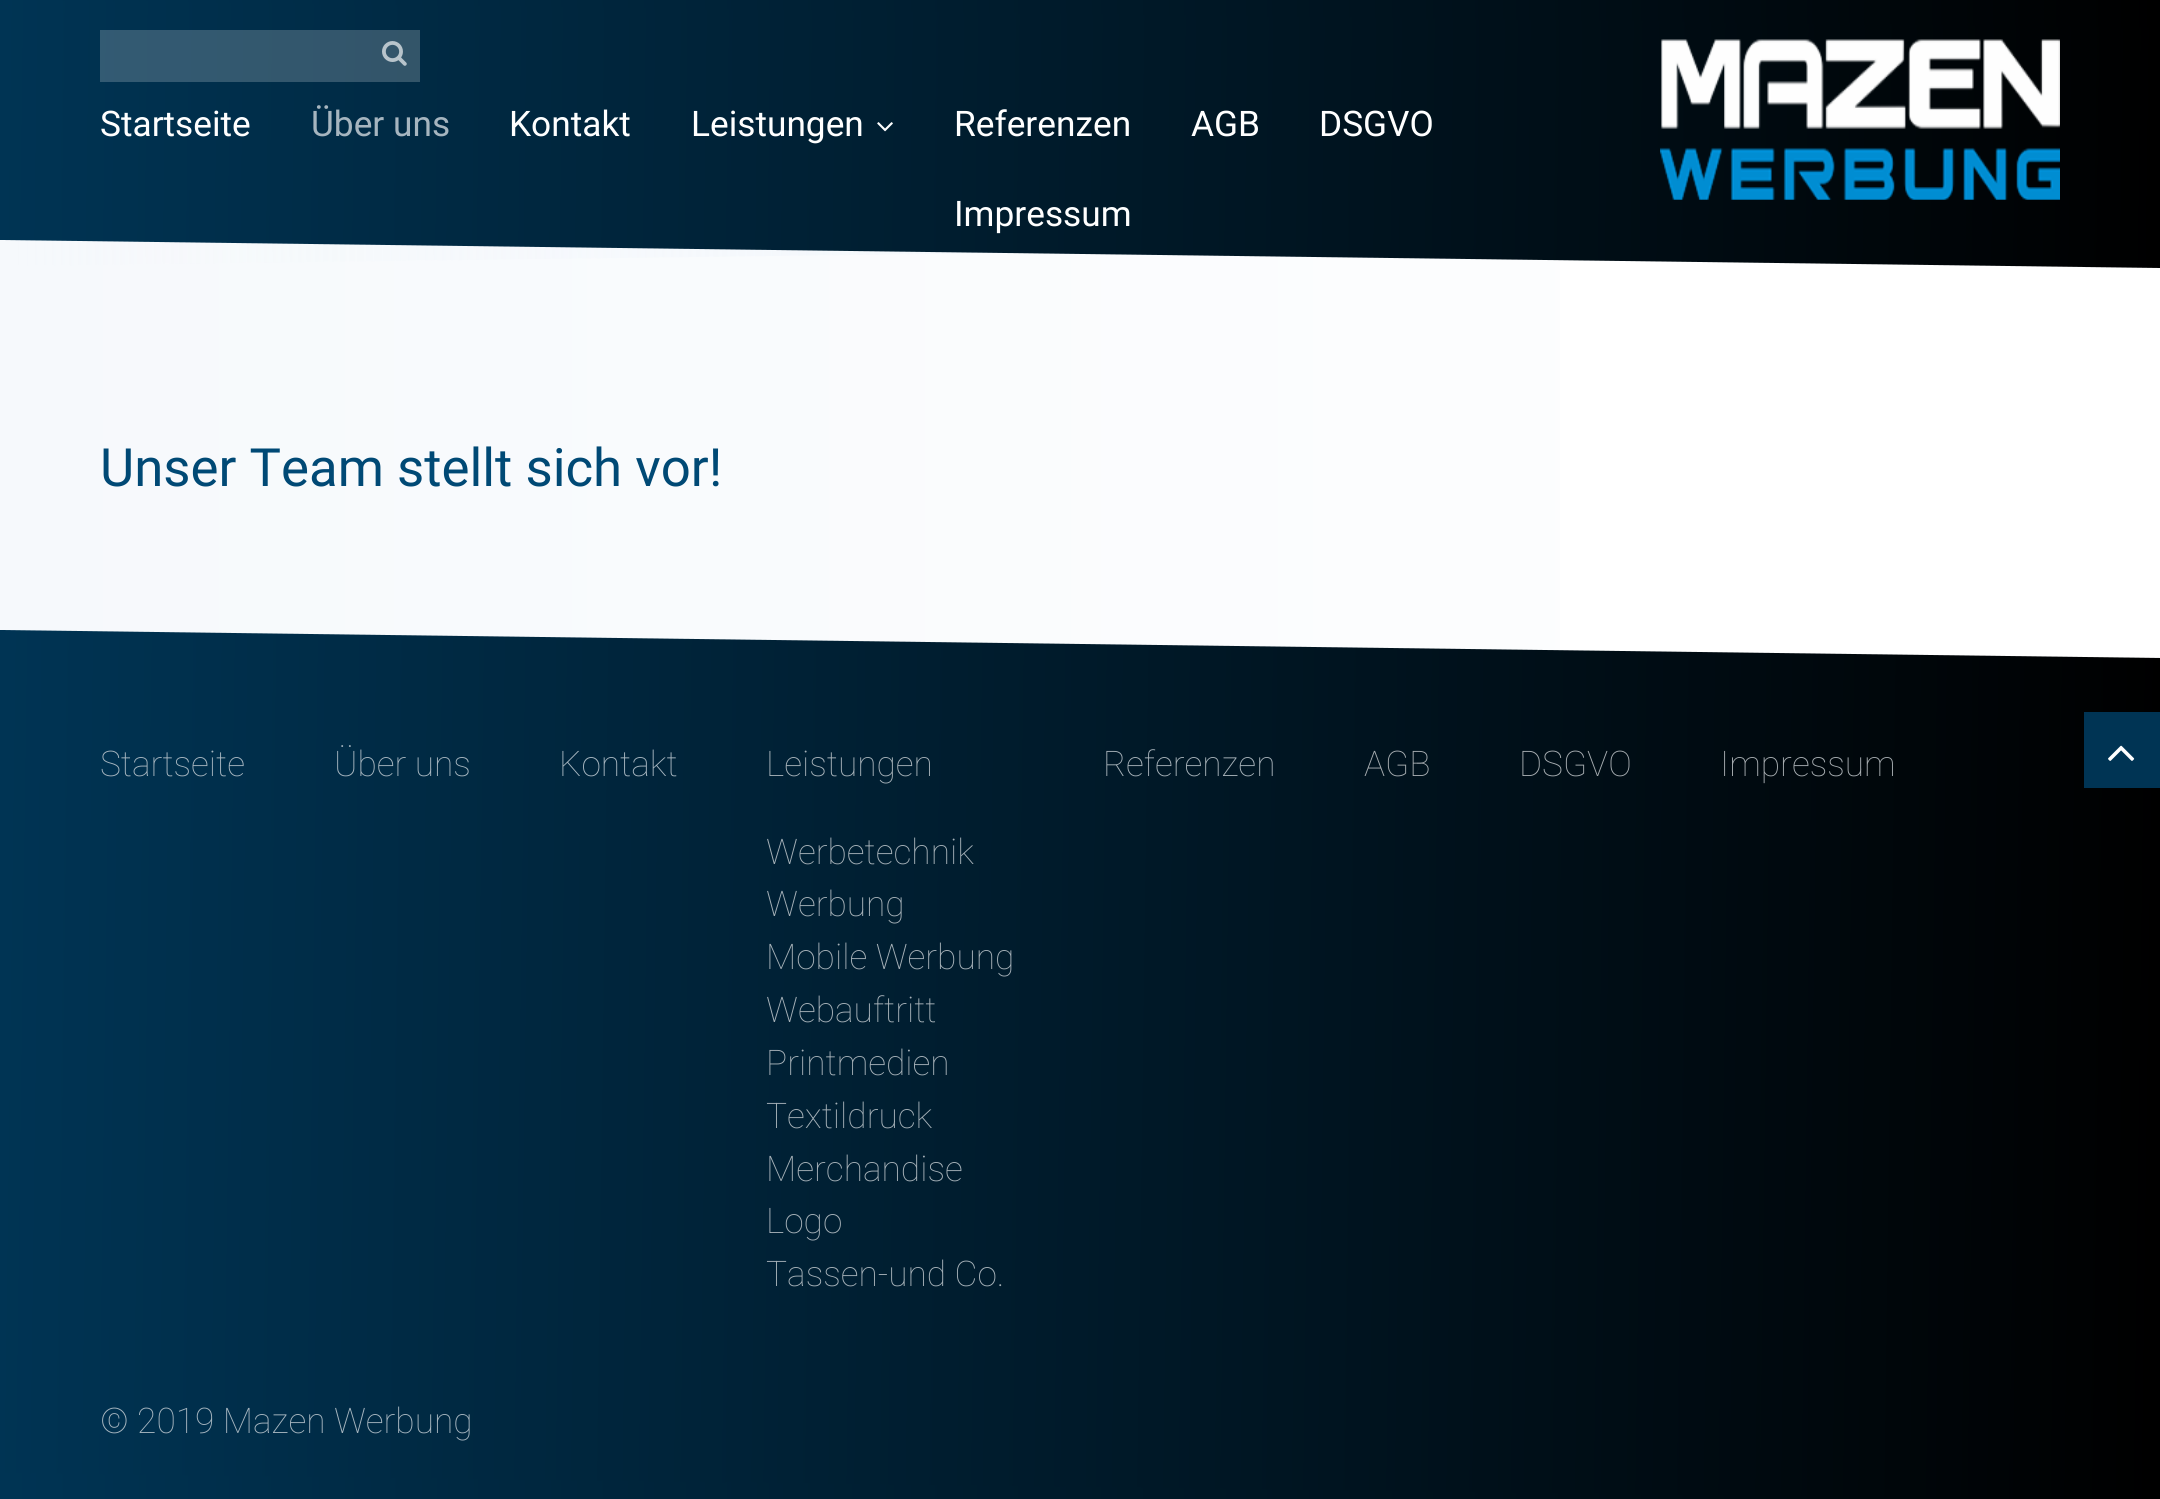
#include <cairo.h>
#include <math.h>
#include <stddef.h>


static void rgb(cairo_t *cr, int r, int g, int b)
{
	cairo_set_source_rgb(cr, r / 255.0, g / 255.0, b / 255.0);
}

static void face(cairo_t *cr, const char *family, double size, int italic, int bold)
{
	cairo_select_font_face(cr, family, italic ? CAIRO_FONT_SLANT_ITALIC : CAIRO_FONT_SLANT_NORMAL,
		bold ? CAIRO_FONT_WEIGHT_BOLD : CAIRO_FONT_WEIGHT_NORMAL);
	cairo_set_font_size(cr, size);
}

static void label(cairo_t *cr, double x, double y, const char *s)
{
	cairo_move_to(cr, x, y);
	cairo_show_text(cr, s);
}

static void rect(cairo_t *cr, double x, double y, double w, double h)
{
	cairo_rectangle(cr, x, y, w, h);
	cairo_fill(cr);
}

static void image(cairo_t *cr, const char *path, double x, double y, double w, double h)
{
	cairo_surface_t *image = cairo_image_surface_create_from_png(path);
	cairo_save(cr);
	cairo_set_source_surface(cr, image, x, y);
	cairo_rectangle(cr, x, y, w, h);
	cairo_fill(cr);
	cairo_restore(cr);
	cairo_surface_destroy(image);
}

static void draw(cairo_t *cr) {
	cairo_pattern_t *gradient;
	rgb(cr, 255, 255, 255);
	cairo_paint(cr);
	gradient = cairo_pattern_create_linear(2160, -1, 0, -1);
	cairo_pattern_add_color_stop_rgba(gradient, 0, 1, 1, 1, 1);
	cairo_pattern_add_color_stop_rgba(gradient, 1, 0.965, 0.976, 0.988, 1);
	cairo_set_source(cr, gradient);
	cairo_pattern_destroy(gradient);
	rect(cr, 0, 240, 1560, 418);
	gradient = cairo_pattern_create_linear(2160, -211, 0, -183);
	cairo_pattern_add_color_stop_rgba(gradient, 0, 0.933, 0.957, 0.98, 1);
	cairo_pattern_add_color_stop_rgba(gradient, 1, 0.933, 0.957, 0.98, 0);
	cairo_set_source(cr, gradient);
	cairo_pattern_destroy(gradient);
	cairo_new_path(cr);
	cairo_move_to(cr, 0, -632);
	cairo_line_to(cr, 2160, -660);
	cairo_line_to(cr, 2160, 238);
	cairo_line_to(cr, 0, 266);
	cairo_close_path(cr);
	cairo_fill(cr);
	gradient = cairo_pattern_create_linear(2160, 120, 0, 120);
	cairo_pattern_add_color_stop_rgba(gradient, 0, 0, 0, 0, 1);
	cairo_pattern_add_color_stop_rgba(gradient, 1, 0, 0.204, 0.329, 1);
	cairo_set_source(cr, gradient);
	cairo_pattern_destroy(gradient);
	rect(cr, 5, 0, 2155, 28);
	gradient = cairo_pattern_create_linear(2160, 148, 0, 120);
	cairo_pattern_add_color_stop_rgba(gradient, 0, 0, 0, 0, 1);
	cairo_pattern_add_color_stop_rgba(gradient, 1, 0, 0.204, 0.329, 1);
	cairo_set_source(cr, gradient);
	cairo_pattern_destroy(gradient);
	cairo_new_path(cr);
	cairo_move_to(cr, 0, 0);
	cairo_line_to(cr, 2160, 28);
	cairo_line_to(cr, 2160, 268);
	cairo_line_to(cr, 0, 240);
	cairo_close_path(cr);
	cairo_fill(cr);
	cairo_set_source_rgba(cr, 1, 1, 1, 0.2);
	rect(cr, 100, 30, 320, 52);
	image(cr, "image0.png", 382, 41, 25, 25);
	face(cr, "Roboto", 35.25, 0, 0);
	rgb(cr, 255, 255, 255);
	label(cr, 100, 136, "Startseite");
	rgb(cr, 166, 181, 191);
	label(cr, 311, 136, "Über uns");
	rgb(cr, 255, 255, 255);
	label(cr, 509, 136, "Kontakt");
	label(cr, 691, 136, "Leistungen");
	image(cr, "image1.png", 877, 122, 16, 10);
	label(cr, 954, 136, "Referenzen");
	label(cr, 1191, 136, "AGB");
	label(cr, 1319, 136, "DSGVO");
	label(cr, 954, 226, "Impressum");
	image(cr, "image2.png", 1660, 39, 400, 161);
	face(cr, "Roboto", 52.75, 0, 0);
	rgb(cr, 0, 73, 117);
	label(cr, 100, 486, "Unser Team stellt sich vor!");
	gradient = cairo_pattern_create_linear(2160, 1079, 0, 1079);
	cairo_pattern_add_color_stop_rgba(gradient, 0, 0, 0, 0, 1);
	cairo_pattern_add_color_stop_rgba(gradient, 1, 0, 0.204, 0.329, 1);
	cairo_set_source(cr, gradient);
	cairo_pattern_destroy(gradient);
	rect(cr, 0, 1473, 2006, 26);
	gradient = cairo_pattern_create_linear(2160, 1080, 0, 1051);
	cairo_pattern_add_color_stop_rgba(gradient, 0, 0, 0, 0, 1);
	cairo_pattern_add_color_stop_rgba(gradient, 1, 0, 0.204, 0.329, 1);
	cairo_set_source(cr, gradient);
	cairo_pattern_destroy(gradient);
	cairo_new_path(cr);
	cairo_move_to(cr, 0, 630);
	cairo_line_to(cr, 2160, 658);
	cairo_line_to(cr, 2160, 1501);
	cairo_line_to(cr, 0, 1473);
	cairo_close_path(cr);
	cairo_fill(cr);
	rgb(cr, 0, 52, 84);
	rect(cr, 2084, 712, 76, 76);
	image(cr, "image3.png", 2108, 745, 27, 16);
	face(cr, "Roboto Thin", 35.25, 0, 0);
	rgb(cr, 166, 181, 191);
	label(cr, 100, 776, "Startseite");
	label(cr, 334, 776, "Über uns");
	label(cr, 559, 776, "Kontakt");
	rgb(cr, 166, 177, 184);
	label(cr, 766, 776, "Leistungen");
	label(cr, 766, 864, "Werbetechnik");
	label(cr, 766, 916, "Werbung");
	label(cr, 766, 969, "Mobile Werbung");
	label(cr, 766, 1022, "Webauftritt");
	label(cr, 766, 1075, "Printmedien");
	label(cr, 766, 1128, "Textildruck");
	label(cr, 766, 1181, "Merchandise");
	label(cr, 766, 1233, "Logo");
	label(cr, 766, 1286, "Tassen-und Co.");
	label(cr, 1103, 776, "Referenzen");
	rgb(cr, 166, 172, 176);
	label(cr, 1364, 776, "AGB");
	label(cr, 1519, 776, "DSGVO");
	label(cr, 1720, 776, "Impressum");
	rgb(cr, 166, 181, 191);
	label(cr, 100, 1433, "© 2019 Mazen Werbung");
}

int main(void) {
	cairo_surface_t *surface = cairo_image_surface_create(CAIRO_FORMAT_RGB24, 2160, 1499);
	cairo_t *cr = cairo_create(surface);
	cairo_font_options_t *options = cairo_font_options_create();
	cairo_font_options_set_hint_metrics(options, CAIRO_HINT_METRICS_OFF);
	cairo_font_options_set_hint_style(options, CAIRO_HINT_STYLE_NONE);
	cairo_set_font_options(cr, options);
	cairo_set_miter_limit(cr, 4);
	draw(cr);
	cairo_surface_write_to_png(surface, "render.png");
	cairo_font_options_destroy(options);
	cairo_destroy(cr);
	cairo_surface_destroy(surface);
	return 0;
}
